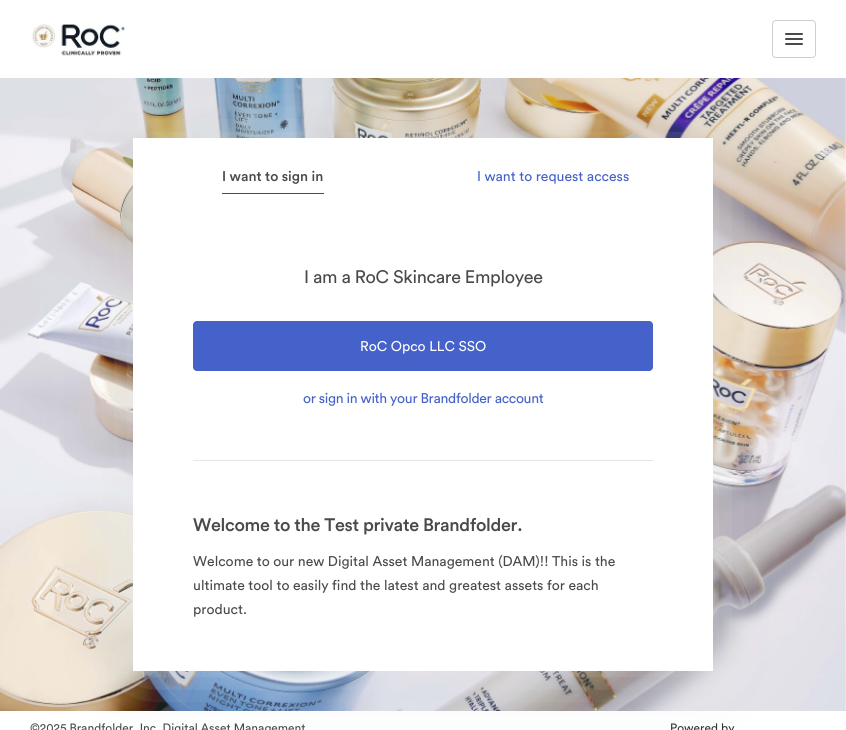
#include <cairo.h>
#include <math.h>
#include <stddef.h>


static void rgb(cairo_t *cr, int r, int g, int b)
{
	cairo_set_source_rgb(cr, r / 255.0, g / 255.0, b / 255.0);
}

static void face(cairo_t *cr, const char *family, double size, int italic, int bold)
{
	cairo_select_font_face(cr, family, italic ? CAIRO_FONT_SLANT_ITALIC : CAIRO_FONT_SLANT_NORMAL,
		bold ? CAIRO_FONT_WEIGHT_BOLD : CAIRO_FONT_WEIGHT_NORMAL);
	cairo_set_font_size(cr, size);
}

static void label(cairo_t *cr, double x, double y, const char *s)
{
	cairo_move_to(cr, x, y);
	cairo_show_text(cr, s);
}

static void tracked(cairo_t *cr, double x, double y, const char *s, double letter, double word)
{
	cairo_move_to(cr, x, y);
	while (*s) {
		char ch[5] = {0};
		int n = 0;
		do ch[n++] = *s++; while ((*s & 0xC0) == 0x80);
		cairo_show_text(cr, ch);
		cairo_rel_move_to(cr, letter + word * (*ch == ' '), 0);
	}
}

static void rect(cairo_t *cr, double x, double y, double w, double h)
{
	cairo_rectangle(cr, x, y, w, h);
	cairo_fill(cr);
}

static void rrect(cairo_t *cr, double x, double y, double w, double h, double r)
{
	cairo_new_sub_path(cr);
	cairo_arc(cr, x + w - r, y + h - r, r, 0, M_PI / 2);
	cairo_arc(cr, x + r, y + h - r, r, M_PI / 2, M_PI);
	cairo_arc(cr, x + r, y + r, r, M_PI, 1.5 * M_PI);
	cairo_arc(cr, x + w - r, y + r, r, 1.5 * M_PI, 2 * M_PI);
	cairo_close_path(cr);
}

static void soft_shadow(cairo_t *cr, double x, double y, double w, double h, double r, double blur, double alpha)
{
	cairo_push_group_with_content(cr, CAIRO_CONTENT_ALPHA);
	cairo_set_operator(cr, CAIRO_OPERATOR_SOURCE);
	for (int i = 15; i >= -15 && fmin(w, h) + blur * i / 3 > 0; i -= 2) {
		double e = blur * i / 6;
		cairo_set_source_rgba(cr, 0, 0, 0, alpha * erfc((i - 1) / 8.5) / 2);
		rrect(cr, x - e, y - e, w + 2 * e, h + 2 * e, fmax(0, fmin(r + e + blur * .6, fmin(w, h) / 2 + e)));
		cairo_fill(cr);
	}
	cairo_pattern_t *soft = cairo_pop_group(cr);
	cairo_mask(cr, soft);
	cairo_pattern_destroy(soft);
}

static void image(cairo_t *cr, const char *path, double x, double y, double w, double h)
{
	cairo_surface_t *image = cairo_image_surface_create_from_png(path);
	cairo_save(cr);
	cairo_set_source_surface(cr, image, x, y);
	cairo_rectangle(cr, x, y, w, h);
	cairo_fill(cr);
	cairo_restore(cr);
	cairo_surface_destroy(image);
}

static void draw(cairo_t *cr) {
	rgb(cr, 255, 255, 255);
	cairo_paint(cr);
	image(cr, "image0.png", 31, 24, 95, 32);
	rrect(cr, 772.5, 20.5, 43, 37, 3.5);
	rgb(cr, 206, 206, 206);
	cairo_set_line_width(cr, 1);
	cairo_stroke(cr);
	rgb(cr, 74, 74, 74);
	rrect(cr, 785, 33, 18, 2, 1);
	cairo_fill(cr);
	rrect(cr, 785, 38, 18, 2, 1);
	cairo_fill(cr);
	rrect(cr, 785, 43, 18, 2, 1);
	cairo_fill(cr);
	image(cr, "image1.png", 0, 78, 846, 633);
	rgb(cr, 221, 221, 221);
	soft_shadow(cr, 133, 138, 580, 533, 0, 37.5, 0.55);
	rgb(cr, 255, 255, 255);
	rect(cr, 133, 138, 580, 75);
	face(cr, "Circular Medium", 14, 0, 0);
	rgb(cr, 74, 74, 74);
	label(cr, 222, 181, "I want to sign in");
	rect(cr, 222, 193, 102, 1);
	face(cr, "Circular", 14, 0, 0);
	rgb(cr, 68, 98, 201);
	label(cr, 477, 181, "I want to request access");
	rgb(cr, 255, 255, 255);
	rect(cr, 133, 213, 580, 458);
	face(cr, "Circular", 18, 0, 0);
	rgb(cr, 74, 74, 74);
	tracked(cr, 304, 283, "I am a RoC Skincare Employee", -0.3, 0);
	rgb(cr, 68, 98, 201);
	rrect(cr, 193, 321, 460, 50, 4);
	cairo_fill(cr);
	face(cr, "Circular", 14, 0, 0);
	rgb(cr, 255, 255, 255);
	label(cr, 360, 351, "RoC Opco LLC SSO");
	rgb(cr, 68, 98, 201);
	tracked(cr, 303, 403, "or sign in with your Brandfolder account", -0.3, 0);
	rgb(cr, 230, 230, 230);
	rect(cr, 193, 460, 460, 1);
	face(cr, "Circular Medium", 18, 0, 0);
	rgb(cr, 74, 74, 74);
	tracked(cr, 193, 531, "Welcome to the Test private Brandfolder.", -0.3, 0);
	face(cr, "Circular", 14, 0, 0);
	label(cr, 193, 566, "Welcome to our new Digital Asset Management (DAM)!! This is the");
	label(cr, 193, 590, "ultimate tool to easily find the latest and greatest assets for each");
	label(cr, 193, 614, "product.");
	face(cr, "Circular", 12, 0, 0);
	label(cr, 30, 732, "©2025 Brandfolder, Inc. Digital Asset Management");
	rgb(cr, 51, 51, 51);
	label(cr, 670, 732, "Powered by");
}

int main(void) {
	cairo_surface_t *surface = cairo_image_surface_create(CAIRO_FORMAT_RGB24, 846, 730);
	cairo_t *cr = cairo_create(surface);
	cairo_font_options_t *options = cairo_font_options_create();
	cairo_font_options_set_hint_metrics(options, CAIRO_HINT_METRICS_OFF);
	cairo_font_options_set_hint_style(options, CAIRO_HINT_STYLE_NONE);
	cairo_set_font_options(cr, options);
	cairo_set_miter_limit(cr, 4);
	draw(cr);
	cairo_surface_write_to_png(surface, "render.png");
	cairo_font_options_destroy(options);
	cairo_destroy(cr);
	cairo_surface_destroy(surface);
	return 0;
}
